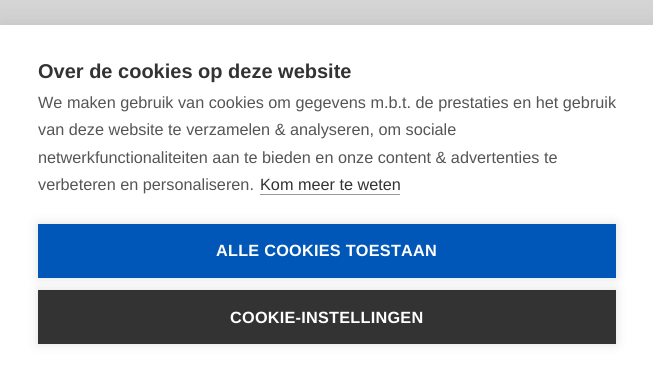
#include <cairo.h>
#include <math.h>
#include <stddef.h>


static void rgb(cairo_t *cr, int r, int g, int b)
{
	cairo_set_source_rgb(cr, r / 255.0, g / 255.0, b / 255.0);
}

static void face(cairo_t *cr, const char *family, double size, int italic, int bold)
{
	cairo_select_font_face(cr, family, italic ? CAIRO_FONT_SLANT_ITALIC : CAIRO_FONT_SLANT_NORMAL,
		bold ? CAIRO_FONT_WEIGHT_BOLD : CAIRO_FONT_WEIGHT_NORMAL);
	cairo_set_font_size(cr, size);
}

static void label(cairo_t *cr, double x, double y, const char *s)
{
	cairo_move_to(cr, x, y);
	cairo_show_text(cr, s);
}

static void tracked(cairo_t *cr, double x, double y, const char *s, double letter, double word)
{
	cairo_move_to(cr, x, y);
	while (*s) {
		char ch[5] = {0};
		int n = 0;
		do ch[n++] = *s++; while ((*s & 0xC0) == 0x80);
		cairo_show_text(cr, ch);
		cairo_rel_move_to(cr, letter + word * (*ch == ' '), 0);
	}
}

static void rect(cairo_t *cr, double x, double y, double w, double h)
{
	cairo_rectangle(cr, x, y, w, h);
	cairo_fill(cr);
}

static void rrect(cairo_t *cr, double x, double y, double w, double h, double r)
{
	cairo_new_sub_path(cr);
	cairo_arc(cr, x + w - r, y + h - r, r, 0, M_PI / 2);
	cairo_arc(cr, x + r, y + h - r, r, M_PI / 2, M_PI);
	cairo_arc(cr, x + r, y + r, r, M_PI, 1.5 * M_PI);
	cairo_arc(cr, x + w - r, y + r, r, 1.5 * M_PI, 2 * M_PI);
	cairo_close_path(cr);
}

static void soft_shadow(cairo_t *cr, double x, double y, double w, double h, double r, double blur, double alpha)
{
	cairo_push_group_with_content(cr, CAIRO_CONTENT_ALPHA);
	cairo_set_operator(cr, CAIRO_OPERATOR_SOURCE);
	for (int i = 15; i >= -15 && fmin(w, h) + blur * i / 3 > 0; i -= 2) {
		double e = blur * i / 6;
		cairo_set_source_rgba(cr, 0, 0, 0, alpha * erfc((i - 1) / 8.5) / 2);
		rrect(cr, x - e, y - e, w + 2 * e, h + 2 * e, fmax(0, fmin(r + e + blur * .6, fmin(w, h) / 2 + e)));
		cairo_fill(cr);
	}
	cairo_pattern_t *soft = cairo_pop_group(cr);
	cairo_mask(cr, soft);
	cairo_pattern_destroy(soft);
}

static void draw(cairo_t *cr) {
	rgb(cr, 213, 213, 213);
	cairo_paint(cr);
	rgb(cr, 0, 0, 0);
	soft_shadow(cr, 0, 25, 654, 350, 0, 12.5, 0.1);
	rgb(cr, 255, 255, 255);
	rect(cr, 0, 25, 653, 350);
	face(cr, "Liberation Sans", 20, 0, 1);
	rgb(cr, 51, 51, 51);
	label(cr, 38, 78, "Over de cookies op deze website");
	face(cr, "Liberation Sans", 16.25, 0, 0);
	rgb(cr, 85, 85, 85);
	label(cr, 38, 108, "We maken gebruik van cookies om gegevens m.b.t. de prestaties en het gebruik");
	label(cr, 38, 135, "van deze website te verzamelen & analyseren, om sociale");
	label(cr, 38, 163, "netwerkfunctionaliteiten aan te bieden en onze content & advertenties te");
	label(cr, 38, 190, "verbeteren en personaliseren.");
	rgb(cr, 51, 51, 51);
	label(cr, 260, 190, "Kom meer te weten");
	rgb(cr, 153, 153, 153);
	rect(cr, 260, 194, 140, 1);
	rgb(cr, 0, 0, 0);
	soft_shadow(cr, 38, 224, 578, 54, 0, 6, 0.12);
	rgb(cr, 0, 87, 184);
	rect(cr, 38, 224, 578, 54);
	face(cr, "Liberation Sans", 16.25, 0, 1);
	rgb(cr, 255, 255, 255);
	tracked(cr, 216, 256, "ALLE COOKIES TOESTAAN", 0.25, 0);
	rgb(cr, 0, 0, 0);
	soft_shadow(cr, 38, 290, 578, 54, 0, 6, 0.12);
	rgb(cr, 51, 51, 51);
	rect(cr, 38, 290, 578, 54);
	rgb(cr, 255, 255, 255);
	tracked(cr, 230, 323, "COOKIE-INSTELLINGEN", 0.25, 0);
}

int main(void) {
	cairo_surface_t *surface = cairo_image_surface_create(CAIRO_FORMAT_RGB24, 653, 375);
	cairo_t *cr = cairo_create(surface);
	cairo_font_options_t *options = cairo_font_options_create();
	cairo_font_options_set_hint_metrics(options, CAIRO_HINT_METRICS_OFF);
	cairo_font_options_set_hint_style(options, CAIRO_HINT_STYLE_NONE);
	cairo_set_font_options(cr, options);
	cairo_set_miter_limit(cr, 4);
	draw(cr);
	cairo_surface_write_to_png(surface, "render.png");
	cairo_font_options_destroy(options);
	cairo_destroy(cr);
	cairo_surface_destroy(surface);
	return 0;
}
